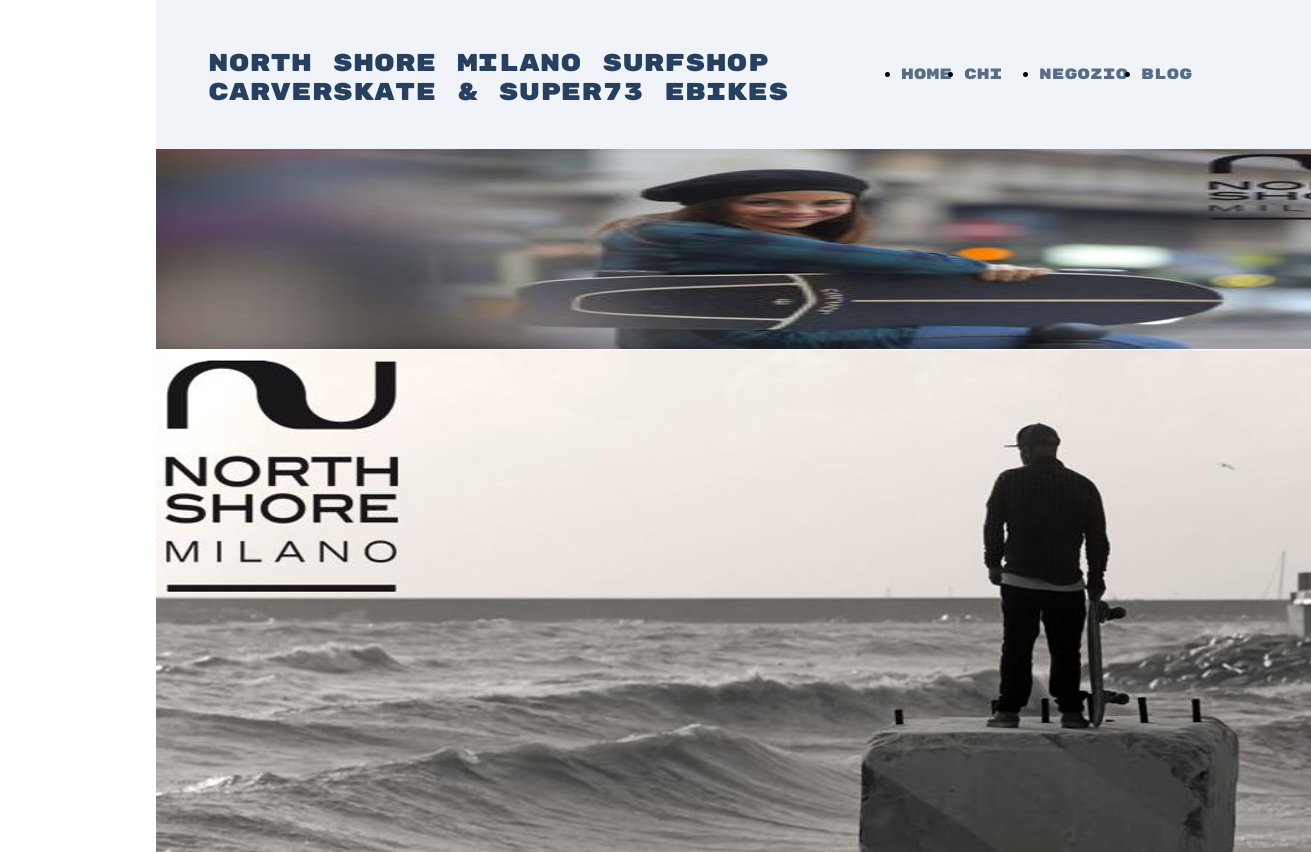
#include <cairo.h>
#include <math.h>
#include <stddef.h>


static void rgb(cairo_t *cr, int r, int g, int b)
{
	cairo_set_source_rgb(cr, r / 255.0, g / 255.0, b / 255.0);
}

static void face(cairo_t *cr, const char *family, double size, int italic, int bold)
{
	cairo_select_font_face(cr, family, italic ? CAIRO_FONT_SLANT_ITALIC : CAIRO_FONT_SLANT_NORMAL,
		bold ? CAIRO_FONT_WEIGHT_BOLD : CAIRO_FONT_WEIGHT_NORMAL);
	cairo_set_font_size(cr, size);
}

static void label(cairo_t *cr, double x, double y, const char *s)
{
	cairo_move_to(cr, x, y);
	cairo_show_text(cr, s);
}

static void rect(cairo_t *cr, double x, double y, double w, double h)
{
	cairo_rectangle(cr, x, y, w, h);
	cairo_fill(cr);
}

static void image(cairo_t *cr, const char *path, double x, double y, double w, double h)
{
	cairo_surface_t *image = cairo_image_surface_create_from_png(path);
	cairo_save(cr);
	cairo_set_source_surface(cr, image, x, y);
	cairo_rectangle(cr, x, y, w, h);
	cairo_fill(cr);
	cairo_restore(cr);
	cairo_surface_destroy(image);
}

static void draw(cairo_t *cr) {
	rgb(cr, 255, 255, 255);
	cairo_paint(cr);
	rgb(cr, 240, 243, 247);
	rect(cr, 156, 0, 1155, 149);
	face(cr, "Rubik Mono One", 24.4, 0, 0);
	rgb(cr, 39, 64, 96);
	label(cr, 208, 71, "NORTH SHORE MILANO SURFSHOP");
	label(cr, 208, 100, "CARVERSKATE & SUPER73 EBIKES");
	rgb(cr, 0, 0, 0);
	cairo_new_path(cr);
	cairo_arc(cr, 887.5, 74.5, 2.5, 0, 2 * M_PI);
	cairo_fill(cr);
	face(cr, "Rubik Mono One", 15, 0, 0);
	rgb(cr, 89, 109, 134);
	label(cr, 901, 79, "Home");
	rgb(cr, 0, 0, 0);
	cairo_new_path(cr);
	cairo_arc(cr, 950.5, 74.5, 2.5, 0, 2 * M_PI);
	cairo_fill(cr);
	rgb(cr, 89, 109, 134);
	label(cr, 964, 79, "Chi");
	rgb(cr, 0, 0, 0);
	cairo_new_path(cr);
	cairo_arc(cr, 1025.5, 74.5, 2.5, 0, 2 * M_PI);
	cairo_fill(cr);
	rgb(cr, 89, 109, 134);
	label(cr, 1039, 79, "Negozio");
	rgb(cr, 0, 0, 0);
	cairo_new_path(cr);
	cairo_arc(cr, 1127.5, 74.5, 2.5, 0, 2 * M_PI);
	cairo_fill(cr);
	rgb(cr, 89, 109, 134);
	label(cr, 1141, 79, "Blog");
	image(cr, "image0.png", 156, 149, 1155, 200);
	image(cr, "image1.png", 156, 350, 1155, 502);
}

int main(void) {
	cairo_surface_t *surface = cairo_image_surface_create(CAIRO_FORMAT_RGB24, 1311, 852);
	cairo_t *cr = cairo_create(surface);
	cairo_font_options_t *options = cairo_font_options_create();
	cairo_font_options_set_hint_metrics(options, CAIRO_HINT_METRICS_OFF);
	cairo_font_options_set_hint_style(options, CAIRO_HINT_STYLE_NONE);
	cairo_set_font_options(cr, options);
	cairo_set_miter_limit(cr, 4);
	draw(cr);
	cairo_surface_write_to_png(surface, "render.png");
	cairo_font_options_destroy(options);
	cairo_destroy(cr);
	cairo_surface_destroy(surface);
	return 0;
}
